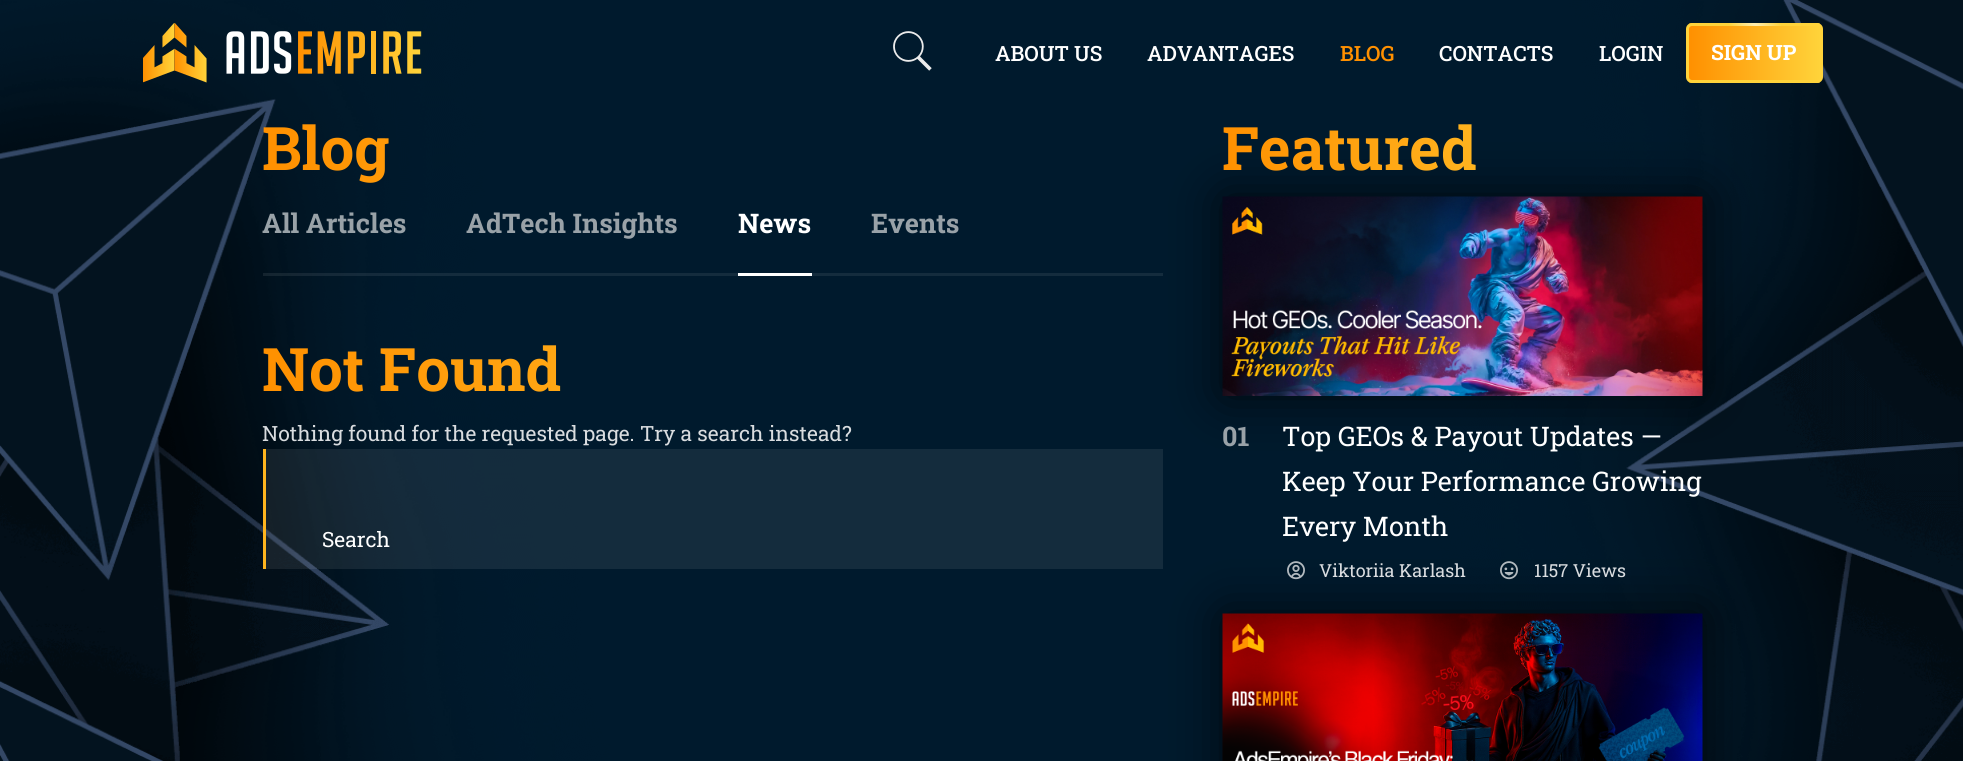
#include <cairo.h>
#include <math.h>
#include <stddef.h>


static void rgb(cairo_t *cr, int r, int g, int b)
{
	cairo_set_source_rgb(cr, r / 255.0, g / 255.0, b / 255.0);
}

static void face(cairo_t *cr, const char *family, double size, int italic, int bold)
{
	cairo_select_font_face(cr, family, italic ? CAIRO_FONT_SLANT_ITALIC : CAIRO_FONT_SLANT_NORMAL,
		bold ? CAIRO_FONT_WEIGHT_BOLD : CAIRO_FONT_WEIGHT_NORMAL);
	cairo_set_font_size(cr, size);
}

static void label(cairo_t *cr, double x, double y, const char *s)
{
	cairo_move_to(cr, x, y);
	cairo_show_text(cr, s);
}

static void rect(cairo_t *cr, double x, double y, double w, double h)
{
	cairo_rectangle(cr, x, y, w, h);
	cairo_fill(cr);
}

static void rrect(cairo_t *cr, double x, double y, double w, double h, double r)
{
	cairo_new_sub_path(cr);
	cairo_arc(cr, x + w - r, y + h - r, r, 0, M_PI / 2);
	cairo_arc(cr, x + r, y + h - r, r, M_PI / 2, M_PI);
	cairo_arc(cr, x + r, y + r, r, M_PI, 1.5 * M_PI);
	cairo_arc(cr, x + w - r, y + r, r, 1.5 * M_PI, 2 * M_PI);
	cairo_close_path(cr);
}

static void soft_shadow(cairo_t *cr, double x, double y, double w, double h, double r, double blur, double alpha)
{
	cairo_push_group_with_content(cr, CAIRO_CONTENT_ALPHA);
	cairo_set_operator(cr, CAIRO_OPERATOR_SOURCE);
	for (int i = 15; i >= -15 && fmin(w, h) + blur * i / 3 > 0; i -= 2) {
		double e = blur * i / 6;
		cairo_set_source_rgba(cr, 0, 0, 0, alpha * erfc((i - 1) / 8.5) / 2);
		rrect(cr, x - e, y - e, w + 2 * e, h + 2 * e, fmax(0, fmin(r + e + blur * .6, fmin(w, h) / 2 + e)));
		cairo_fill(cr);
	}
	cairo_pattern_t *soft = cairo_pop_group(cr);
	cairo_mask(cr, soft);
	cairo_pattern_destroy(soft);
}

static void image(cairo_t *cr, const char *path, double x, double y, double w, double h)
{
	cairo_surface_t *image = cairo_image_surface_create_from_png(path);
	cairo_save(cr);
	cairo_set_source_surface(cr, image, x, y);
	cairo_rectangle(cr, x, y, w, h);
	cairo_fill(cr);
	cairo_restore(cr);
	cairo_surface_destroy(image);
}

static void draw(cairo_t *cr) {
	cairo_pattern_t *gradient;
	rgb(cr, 0, 26, 45);
	cairo_paint(cr);
	image(cr, "image0.png", 0, 0, 1963, 761);
	image(cr, "image1.png", 143, 23, 279, 60);
	image(cr, "image2.png", 893, 31, 39, 40);
	face(cr, "Roboto Slab Medium", 21, 0, 0);
	rgb(cr, 255, 255, 255);
	label(cr, 995, 61, "ABOUT US");
	label(cr, 1147, 61, "ADVANTAGES");
	rgb(cr, 255, 144, 0);
	label(cr, 1340, 61, "BLOG");
	rgb(cr, 255, 255, 255);
	label(cr, 1439, 61, "CONTACTS");
	label(cr, 1599, 61, "LOGIN");
	cairo_save(cr);
	rrect(cr, 1686, 23, 137, 60, 6);
	cairo_clip(cr);
	gradient = cairo_pattern_create_linear(1689, 53, 1820, 53);
	cairo_pattern_add_color_stop_rgba(gradient, 0, 1, 0.565, 0, 1);
	cairo_pattern_add_color_stop_rgba(gradient, 1, 1, 0.827, 0.227, 1);
	cairo_set_source(cr, gradient);
	cairo_pattern_destroy(gradient);
	rect(cr, 1689, 23, 131, 60);
	cairo_restore(cr);
	rrect(cr, 1687.5, 24.5, 134, 57, 4.5);
	rgb(cr, 255, 211, 58);
	cairo_set_line_width(cr, 3);
	cairo_stroke(cr);
	gradient = cairo_pattern_create_linear(1721, 57, 1788, -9);
	cairo_pattern_add_color_stop_rgba(gradient, 0.3, 1, 1, 1, 0);
	cairo_pattern_add_color_stop_rgba(gradient, 0.5, 1, 1, 1, 0.6);
	cairo_pattern_add_color_stop_rgba(gradient, 0.7, 1, 1, 1, 0);
	cairo_set_source(cr, gradient);
	cairo_pattern_destroy(gradient);
	rect(cr, 1729, 23, 52, 3);
	face(cr, "Roboto Slab", 21, 0, 1);
	rgb(cr, 255, 255, 255);
	label(cr, 1711, 60, "SIGN UP");
	face(cr, "Roboto Slab", 60, 0, 1);
	gradient = cairo_pattern_create_linear(262, 147, 1162, 147);
	cairo_pattern_add_color_stop_rgba(gradient, 0, 1, 0.565, 0, 1);
	cairo_pattern_add_color_stop_rgba(gradient, 1, 1, 0.827, 0.227, 1);
	cairo_set_source(cr, gradient);
	cairo_pattern_destroy(gradient);
	label(cr, 262, 170, "Blog");
	face(cr, "Roboto Slab", 27, 0, 1);
	rgb(cr, 153, 162, 168);
	label(cr, 262, 233, "All Articles");
	label(cr, 466, 233, "AdTech Insights");
	rgb(cr, 255, 255, 255);
	rect(cr, 738, 273, 74, 3);
	label(cr, 738, 233, "News");
	rgb(cr, 153, 162, 168);
	label(cr, 871, 233, "Events");
	cairo_set_source_rgba(cr, 1, 1, 1, 0.08);
	rect(cr, 266, 449, 897, 60);
	rgb(cr, 0, 0, 0);
	soft_shadow(cr, 1223, 197, 480, 199, 0, 25.5, 0.75);
	cairo_set_source_rgba(cr, 1, 1, 1, 0.08);
	rect(cr, 263, 273, 900, 3);
	face(cr, "Roboto Slab", 60, 0, 1);
	gradient = cairo_pattern_create_linear(262, 369, 1162, 369);
	cairo_pattern_add_color_stop_rgba(gradient, 0, 1, 0.565, 0, 1);
	cairo_pattern_add_color_stop_rgba(gradient, 1, 1, 0.827, 0.227, 1);
	cairo_set_source(cr, gradient);
	cairo_pattern_destroy(gradient);
	label(cr, 262, 391, "Not Found");
	face(cr, "Roboto Slab", 21, 0, 0);
	rgb(cr, 217, 220, 223);
	label(cr, 262, 441, "Nothing found for the requested page. Try a search instead?");
	rgb(cr, 255, 180, 30);
	rect(cr, 263, 449, 3, 120);
	rgb(cr, 0, 0, 0);
	soft_shadow(cr, 1223, 614, 480, 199, 0, 25.5, 0.75);
	cairo_set_source_rgba(cr, 1, 1, 1, 0.08);
	rect(cr, 266, 509, 897, 60);
	rgb(cr, 255, 255, 255);
	label(cr, 322, 547, "Search");
	face(cr, "Roboto Slab", 60, 0, 1);
	gradient = cairo_pattern_create_linear(1222, 147, 1702, 147);
	cairo_pattern_add_color_stop_rgba(gradient, 0, 1, 0.565, 0, 1);
	cairo_pattern_add_color_stop_rgba(gradient, 1, 1, 0.827, 0.227, 1);
	cairo_set_source(cr, gradient);
	cairo_pattern_destroy(gradient);
	label(cr, 1222, 170, "Featured");
	image(cr, "image3.png", 1222, 196, 481, 200);
	face(cr, "Roboto Slab", 27, 0, 1);
	rgb(cr, 153, 162, 168);
	label(cr, 1222, 446, "01");
	face(cr, "Roboto Slab", 27, 0, 0);
	rgb(cr, 255, 255, 255);
	label(cr, 1282, 446, "Top GEOs & Payout Updates —");
	label(cr, 1282, 491, "Keep Your Performance Growing");
	label(cr, 1282, 536, "Every Month");
	image(cr, "image4.png", 1287, 561, 18, 19);
	face(cr, "Roboto Slab", 18, 0, 0);
	rgb(cr, 217, 220, 223);
	label(cr, 1319, 577, "Viktoriia Karlash");
	image(cr, "image5.png", 1500, 561, 18, 19);
	label(cr, 1534, 577, "1157 Views");
	image(cr, "image6.png", 1222, 613, 481, 148);
}

int main(void) {
	cairo_surface_t *surface = cairo_image_surface_create(CAIRO_FORMAT_RGB24, 1963, 761);
	cairo_t *cr = cairo_create(surface);
	cairo_font_options_t *options = cairo_font_options_create();
	cairo_font_options_set_hint_metrics(options, CAIRO_HINT_METRICS_OFF);
	cairo_font_options_set_hint_style(options, CAIRO_HINT_STYLE_NONE);
	cairo_set_font_options(cr, options);
	cairo_set_miter_limit(cr, 4);
	draw(cr);
	cairo_surface_write_to_png(surface, "render.png");
	cairo_font_options_destroy(options);
	cairo_destroy(cr);
	cairo_surface_destroy(surface);
	return 0;
}
